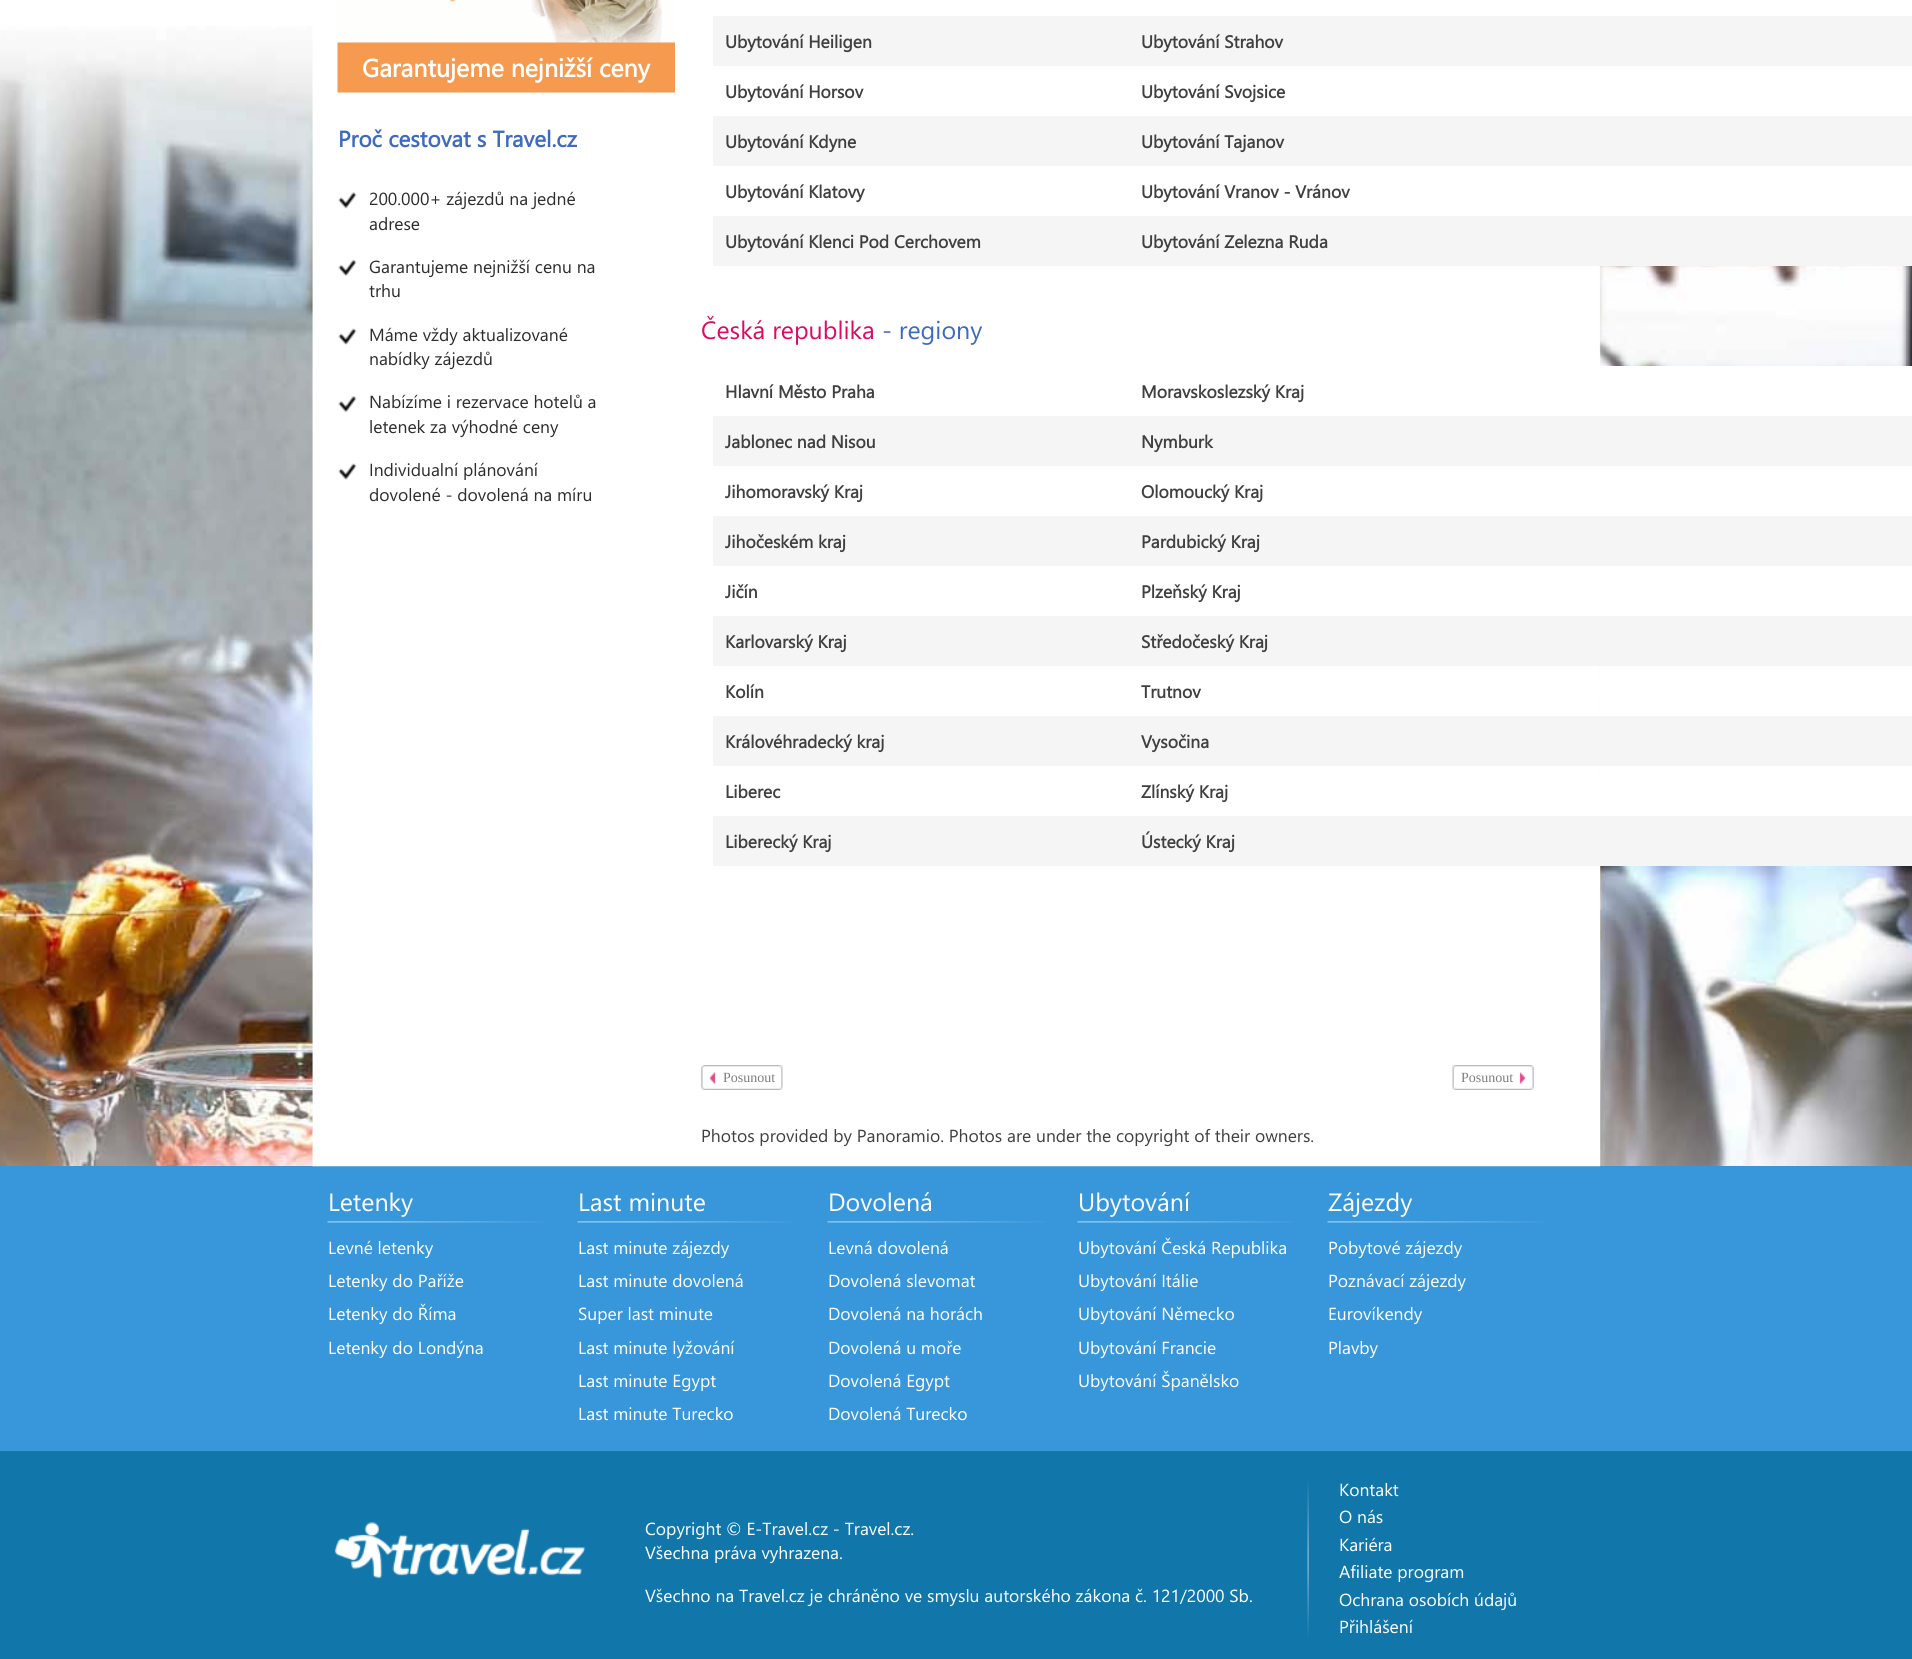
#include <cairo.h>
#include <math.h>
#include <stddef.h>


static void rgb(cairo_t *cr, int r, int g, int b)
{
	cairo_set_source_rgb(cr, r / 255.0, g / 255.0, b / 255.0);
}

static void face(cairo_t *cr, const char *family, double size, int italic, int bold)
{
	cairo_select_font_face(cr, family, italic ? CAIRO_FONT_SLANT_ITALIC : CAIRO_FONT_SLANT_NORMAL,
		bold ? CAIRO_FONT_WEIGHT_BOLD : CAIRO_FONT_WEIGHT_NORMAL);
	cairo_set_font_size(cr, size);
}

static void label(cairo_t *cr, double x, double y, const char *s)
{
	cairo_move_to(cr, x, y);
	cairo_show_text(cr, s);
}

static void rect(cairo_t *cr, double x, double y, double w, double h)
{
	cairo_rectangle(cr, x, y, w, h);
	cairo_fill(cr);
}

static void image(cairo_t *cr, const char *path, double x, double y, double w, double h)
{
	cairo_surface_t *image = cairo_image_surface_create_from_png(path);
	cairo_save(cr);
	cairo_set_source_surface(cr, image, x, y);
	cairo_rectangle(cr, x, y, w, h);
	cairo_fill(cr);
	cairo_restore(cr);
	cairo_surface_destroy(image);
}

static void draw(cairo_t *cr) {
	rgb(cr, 255, 255, 255);
	cairo_paint(cr);
	image(cr, "image0.png", 0, 26, 1912, 1140);
	rgb(cr, 56, 151, 218);
	rect(cr, 0, 1166, 1912, 285);
	image(cr, "image1.png", 312, 26, 1289, 1141);
	image(cr, "image2.png", 337, 0, 338, 93);
	face(cr, "Segoe UI", 25, 0, 1);
	rgb(cr, 255, 255, 255);
	label(cr, 362, 77, "Garantujeme nejnižší ceny");
	face(cr, "Segoe UI", 22.5, 0, 1);
	rgb(cr, 62, 107, 191);
	label(cr, 338, 147, "Proč cestovat s Travel.cz");
	image(cr, "image3.png", 338, 192, 19, 17);
	face(cr, "Segoe UI", 17.5, 0, 0);
	rgb(cr, 45, 45, 45);
	label(cr, 369, 205, "200.000+ zájezdů na jedné");
	label(cr, 369, 230, "adrese");
	image(cr, "image4.png", 338, 259, 19, 18);
	label(cr, 369, 273, "Garantujeme nejnižší cenu na");
	label(cr, 369, 297, "trhu");
	image(cr, "image5.png", 338, 328, 19, 17);
	label(cr, 369, 341, "Máme vždy aktualizované");
	label(cr, 369, 365, "nabídky zájezdů");
	image(cr, "image6.png", 338, 396, 19, 17);
	label(cr, 369, 408, "Nabízíme i rezervace hotelů a");
	label(cr, 369, 433, "letenek za výhodné ceny");
	image(cr, "image5.png", 338, 463, 19, 17);
	label(cr, 369, 476, "Individualní plánování");
	label(cr, 369, 501, "dovolené - dovolená na míru");
	rgb(cr, 245, 245, 245);
	rect(cr, 713, 16, 1199, 50);
	face(cr, "Segoe UI", 17.5, 0, 1);
	rgb(cr, 64, 64, 64);
	label(cr, 725, 48, "Ubytování Heiligen");
	label(cr, 725, 98, "Ubytování Horsov");
	rgb(cr, 245, 245, 245);
	rect(cr, 713, 116, 1199, 50);
	rgb(cr, 64, 64, 64);
	label(cr, 725, 148, "Ubytování Kdyne");
	label(cr, 725, 198, "Ubytování Klatovy");
	rgb(cr, 245, 245, 245);
	rect(cr, 713, 216, 1199, 50);
	rgb(cr, 64, 64, 64);
	label(cr, 725, 248, "Ubytování Klenci Pod Cerchovem");
	label(cr, 1141, 48, "Ubytování Strahov");
	rgb(cr, 255, 255, 255);
	rect(cr, 1599, 66, 313, 50);
	rgb(cr, 64, 64, 64);
	label(cr, 1141, 98, "Ubytování Svojsice");
	label(cr, 1141, 148, "Ubytování Tajanov");
	rgb(cr, 255, 255, 255);
	rect(cr, 1599, 166, 313, 50);
	rgb(cr, 64, 64, 64);
	label(cr, 1141, 198, "Ubytování Vranov - Vránov");
	label(cr, 1141, 248, "Ubytování Zelezna Ruda");
	face(cr, "Segoe UI", 25, 0, 0);
	rgb(cr, 219, 13, 99);
	label(cr, 701, 339, "Česká republika");
	rgb(cr, 62, 107, 191);
	label(cr, 882, 339, "- regiony");
	face(cr, "Segoe UI", 17.5, 0, 1);
	rgb(cr, 64, 64, 64);
	label(cr, 725, 398, "Hlavní Město Praha");
	rgb(cr, 245, 245, 245);
	rect(cr, 713, 416, 1199, 50);
	rgb(cr, 64, 64, 64);
	label(cr, 725, 448, "Jablonec nad Nisou");
	label(cr, 725, 498, "Jihomoravský Kraj");
	rgb(cr, 245, 245, 245);
	rect(cr, 713, 516, 1199, 50);
	rgb(cr, 64, 64, 64);
	label(cr, 725, 548, "Jihočeském kraj");
	label(cr, 725, 598, "Jičín");
	rgb(cr, 245, 245, 245);
	rect(cr, 713, 616, 1199, 50);
	rgb(cr, 64, 64, 64);
	label(cr, 725, 648, "Karlovarský Kraj");
	label(cr, 725, 698, "Kolín");
	rgb(cr, 245, 245, 245);
	rect(cr, 713, 716, 1199, 50);
	rgb(cr, 64, 64, 64);
	label(cr, 725, 748, "Královéhradecký kraj");
	label(cr, 725, 798, "Liberec");
	rgb(cr, 245, 245, 245);
	rect(cr, 713, 816, 1199, 50);
	rgb(cr, 64, 64, 64);
	label(cr, 725, 848, "Liberecký Kraj");
	rgb(cr, 255, 255, 255);
	rect(cr, 1599, 366, 313, 50);
	rgb(cr, 64, 64, 64);
	label(cr, 1141, 398, "Moravskoslezský Kraj");
	label(cr, 1141, 448, "Nymburk");
	rgb(cr, 255, 255, 255);
	rect(cr, 1599, 466, 313, 50);
	rgb(cr, 64, 64, 64);
	label(cr, 1141, 498, "Olomoucký Kraj");
	label(cr, 1141, 548, "Pardubický Kraj");
	rgb(cr, 255, 255, 255);
	rect(cr, 1599, 566, 313, 50);
	rgb(cr, 64, 64, 64);
	label(cr, 1141, 598, "Plzeňský Kraj");
	label(cr, 1141, 648, "Středočeský Kraj");
	rgb(cr, 255, 255, 255);
	rect(cr, 1600, 666, 312, 50);
	rgb(cr, 64, 64, 64);
	label(cr, 1141, 698, "Trutnov");
	label(cr, 1141, 748, "Vysočina");
	rgb(cr, 255, 255, 255);
	rect(cr, 1600, 766, 312, 50);
	rgb(cr, 64, 64, 64);
	label(cr, 1141, 798, "Zlínský Kraj");
	label(cr, 1141, 848, "Ústecký Kraj");
	image(cr, "image7.png", 701, 1065, 82, 25);
	image(cr, "image8.png", 779, 1065, 4, 25);
	face(cr, "Liberation Serif", 14, 0, 0);
	rgb(cr, 126, 126, 128);
	label(cr, 723, 1082, "Posunout");
	image(cr, "image9.png", 1452, 1065, 82, 25);
	image(cr, "image10.png", 1452, 1065, 4, 25);
	label(cr, 1461, 1082, "Posunout");
	face(cr, "Segoe UI", 17.5, 0, 0);
	rgb(cr, 64, 64, 64);
	label(cr, 701, 1142, "Photos provided by Panoramio. Photos are under the copyright of their owners.");
	image(cr, "image11.png", 327, 1221, 217, 2);
	face(cr, "Segoe UI", 25, 0, 0);
	rgb(cr, 255, 255, 255);
	label(cr, 328, 1211, "Letenky");
	face(cr, "Segoe UI", 17.5, 0, 0);
	label(cr, 328, 1254, "Levné letenky");
	label(cr, 328, 1287, "Letenky do Paříže");
	label(cr, 328, 1320, "Letenky do Říma");
	label(cr, 328, 1354, "Letenky do Londýna");
	image(cr, "image11.png", 577, 1221, 217, 2);
	face(cr, "Segoe UI", 25, 0, 0);
	label(cr, 578, 1211, "Last minute");
	face(cr, "Segoe UI", 17.5, 0, 0);
	label(cr, 578, 1254, "Last minute zájezdy");
	label(cr, 578, 1287, "Last minute dovolená");
	label(cr, 578, 1320, "Super last minute");
	label(cr, 578, 1354, "Last minute lyžování");
	label(cr, 578, 1387, "Last minute Egypt");
	label(cr, 578, 1420, "Last minute Turecko");
	image(cr, "image11.png", 827, 1221, 217, 2);
	face(cr, "Segoe UI", 25, 0, 0);
	label(cr, 828, 1211, "Dovolená");
	face(cr, "Segoe UI", 17.5, 0, 0);
	label(cr, 828, 1254, "Levná dovolená");
	label(cr, 828, 1287, "Dovolená slevomat");
	label(cr, 828, 1320, "Dovolená na horách");
	label(cr, 828, 1354, "Dovolená u moře");
	label(cr, 828, 1387, "Dovolená Egypt");
	label(cr, 828, 1420, "Dovolená Turecko");
	image(cr, "image11.png", 1077, 1221, 217, 2);
	face(cr, "Segoe UI", 25, 0, 0);
	label(cr, 1078, 1211, "Ubytování");
	face(cr, "Segoe UI", 17.5, 0, 0);
	label(cr, 1078, 1254, "Ubytování Česká Republika");
	label(cr, 1078, 1287, "Ubytování Itálie");
	label(cr, 1078, 1320, "Ubytování Německo");
	label(cr, 1078, 1354, "Ubytování Francie");
	label(cr, 1078, 1387, "Ubytování Španělsko");
	image(cr, "image11.png", 1327, 1221, 217, 2);
	face(cr, "Segoe UI", 25, 0, 0);
	label(cr, 1328, 1211, "Zájezdy");
	face(cr, "Segoe UI", 17.5, 0, 0);
	label(cr, 1328, 1254, "Pobytové zájezdy");
	label(cr, 1328, 1287, "Poznávací zájezdy");
	label(cr, 1328, 1320, "Eurovíkendy");
	label(cr, 1328, 1354, "Plavby");
	rgb(cr, 17, 119, 171);
	rect(cr, 0, 1451, 1912, 208);
	image(cr, "image12.png", 334, 1522, 252, 57);
	rgb(cr, 255, 255, 255);
	label(cr, 645, 1535, "Copyright © E-Travel.cz - Travel.cz.");
	label(cr, 645, 1559, "Všechna práva vyhrazena.");
	label(cr, 645, 1602, "Všechno na Travel.cz je chráněno ve smyslu autorského zákona č. 121/2000 Sb.");
	image(cr, "image13.png", 1307, 1480, 2, 158);
	label(cr, 1339, 1496, "Kontakt");
	label(cr, 1339, 1523, "O nás");
	label(cr, 1339, 1551, "Kariéra");
	label(cr, 1339, 1578, "Afiliate program");
	label(cr, 1339, 1606, "Ochrana osobích údajů");
	label(cr, 1339, 1633, "Přihlášení");
}

int main(void) {
	cairo_surface_t *surface = cairo_image_surface_create(CAIRO_FORMAT_RGB24, 1912, 1659);
	cairo_t *cr = cairo_create(surface);
	cairo_font_options_t *options = cairo_font_options_create();
	cairo_font_options_set_hint_metrics(options, CAIRO_HINT_METRICS_OFF);
	cairo_font_options_set_hint_style(options, CAIRO_HINT_STYLE_NONE);
	cairo_set_font_options(cr, options);
	cairo_set_miter_limit(cr, 4);
	draw(cr);
	cairo_surface_write_to_png(surface, "render.png");
	cairo_font_options_destroy(options);
	cairo_destroy(cr);
	cairo_surface_destroy(surface);
	return 0;
}
